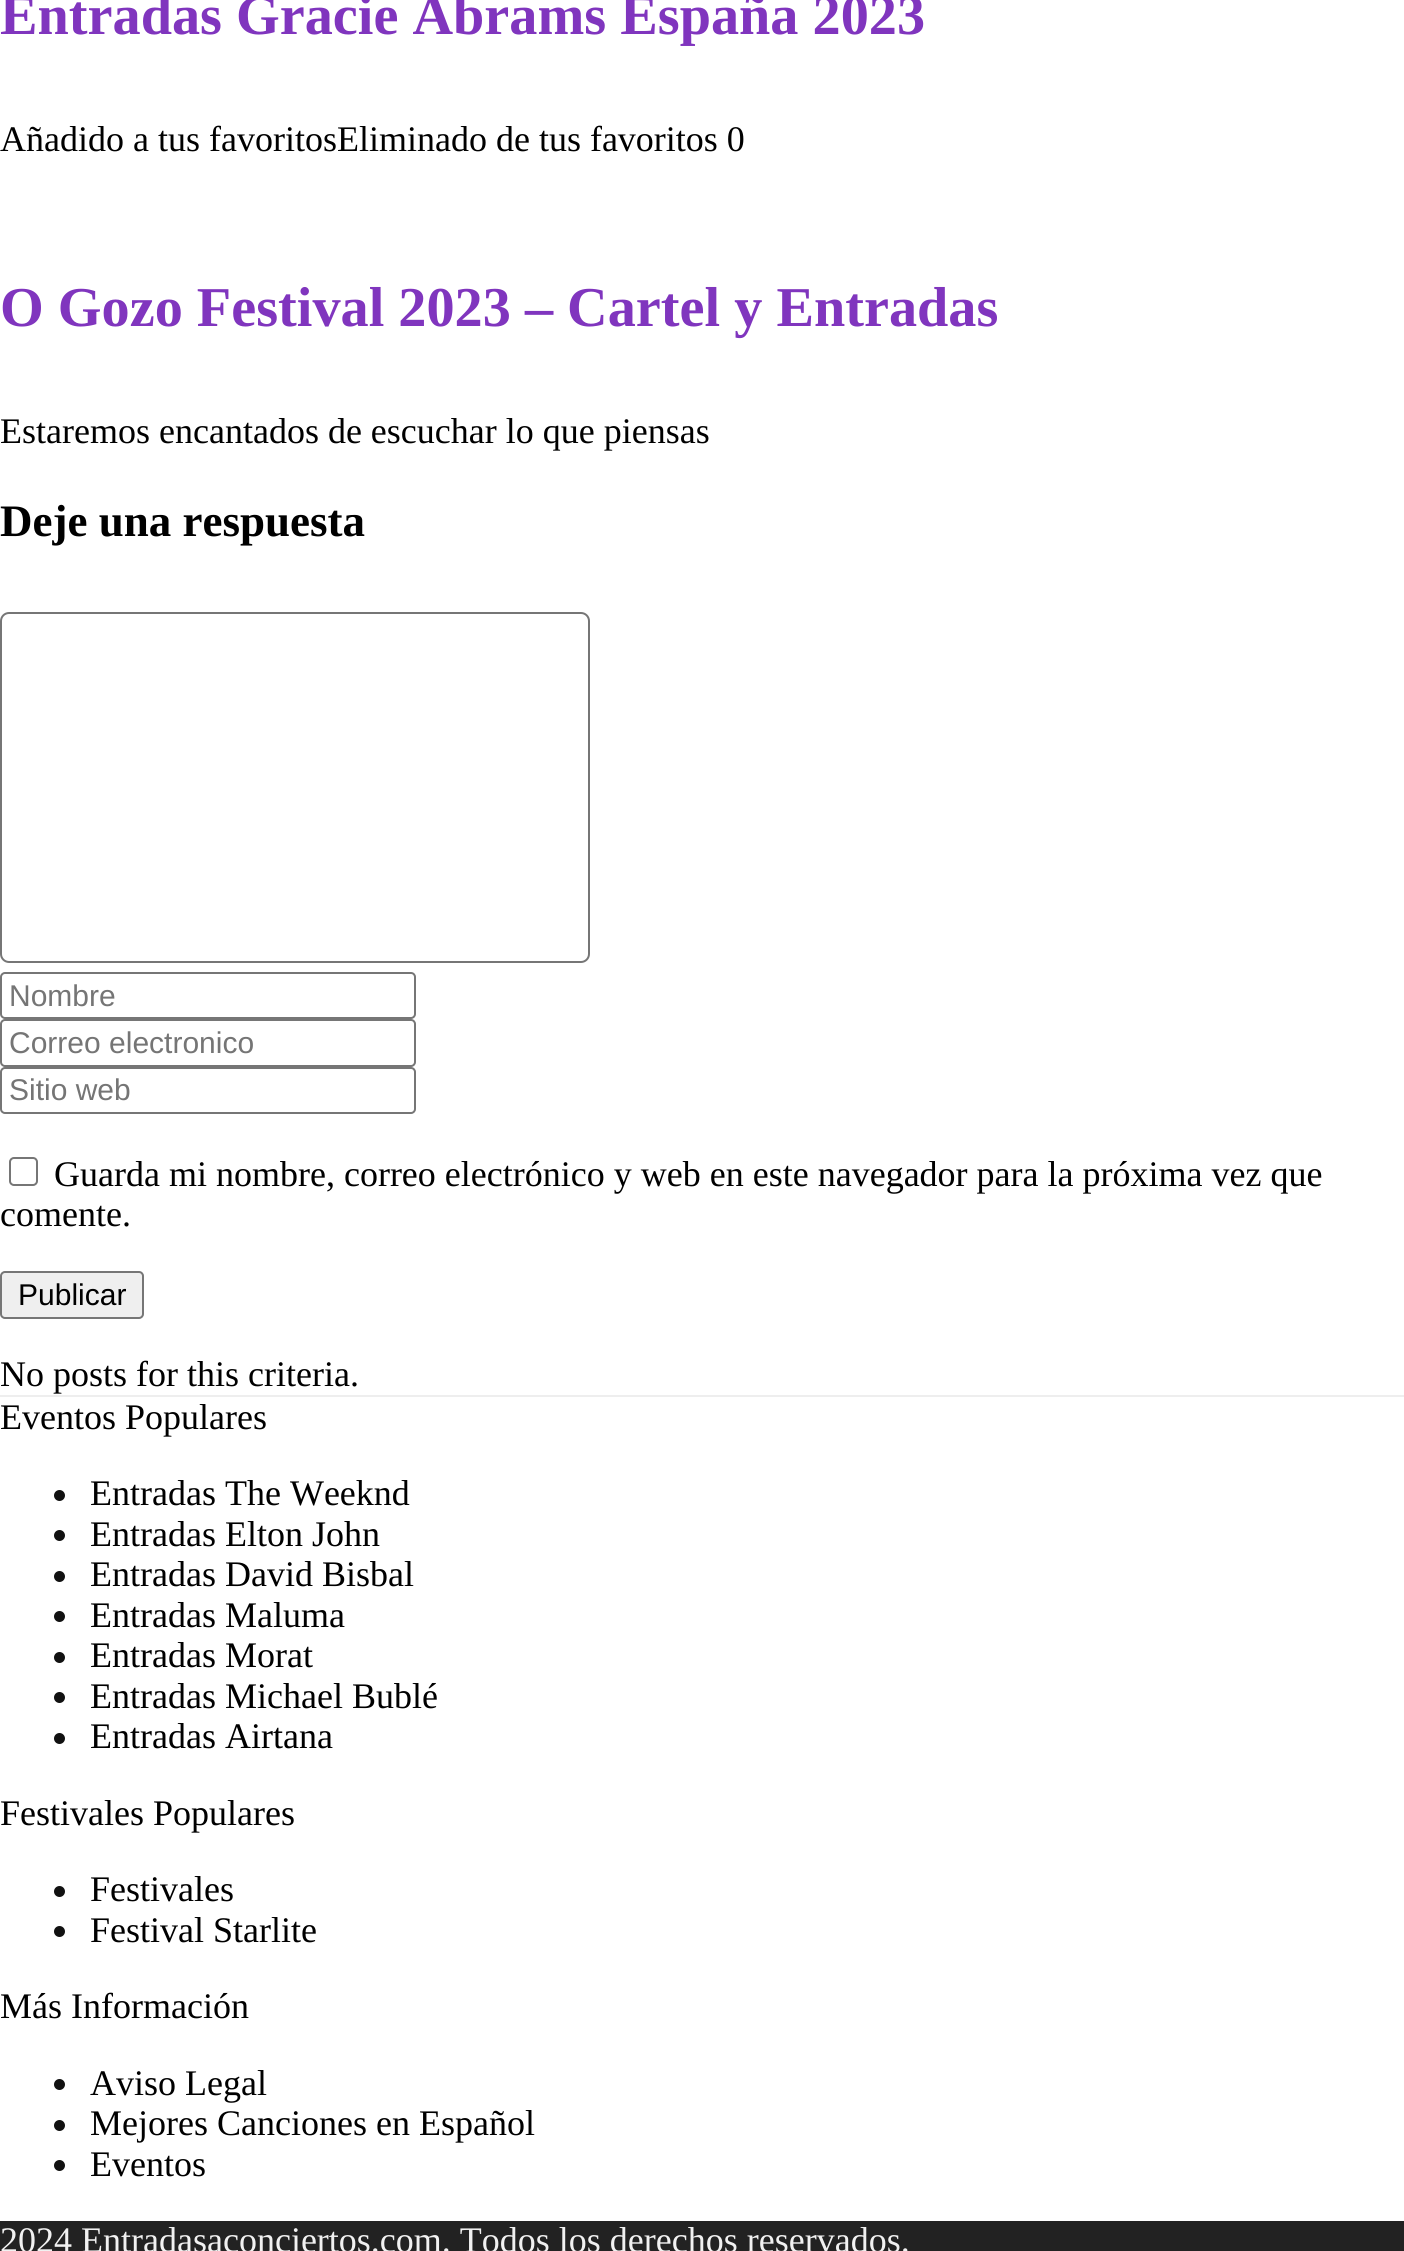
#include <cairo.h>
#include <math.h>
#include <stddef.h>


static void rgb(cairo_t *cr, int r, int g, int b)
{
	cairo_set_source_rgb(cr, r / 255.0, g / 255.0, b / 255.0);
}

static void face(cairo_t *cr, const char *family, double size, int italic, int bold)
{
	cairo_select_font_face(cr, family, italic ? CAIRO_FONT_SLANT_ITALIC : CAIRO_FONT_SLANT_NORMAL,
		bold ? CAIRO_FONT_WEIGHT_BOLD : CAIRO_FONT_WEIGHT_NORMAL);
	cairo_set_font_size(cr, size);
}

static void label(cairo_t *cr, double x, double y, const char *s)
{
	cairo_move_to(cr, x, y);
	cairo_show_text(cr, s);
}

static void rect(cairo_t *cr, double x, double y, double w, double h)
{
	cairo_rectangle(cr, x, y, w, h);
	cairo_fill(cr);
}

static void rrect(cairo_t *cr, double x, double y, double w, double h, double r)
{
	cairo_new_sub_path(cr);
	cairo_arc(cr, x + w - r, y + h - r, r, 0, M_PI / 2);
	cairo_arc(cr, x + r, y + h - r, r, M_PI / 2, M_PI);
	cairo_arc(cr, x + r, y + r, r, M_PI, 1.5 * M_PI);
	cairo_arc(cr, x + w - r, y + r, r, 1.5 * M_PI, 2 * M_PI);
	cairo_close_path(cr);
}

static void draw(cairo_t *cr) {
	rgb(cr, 255, 255, 255);
	cairo_paint(cr);
	face(cr, "Liberation Serif", 56.25, 0, 1);
	rgb(cr, 128, 53, 190);
	label(cr, 0, 34, "Entradas Gracie Abrams España 2023");
	face(cr, "Liberation Serif", 36, 0, 0);
	rgb(cr, 0, 0, 0);
	label(cr, 0, 151, "Añadido a tus favoritosEliminado de tus favoritos 0");
	face(cr, "Liberation Serif", 56.25, 0, 1);
	rgb(cr, 128, 53, 190);
	label(cr, 0, 326, "O Gozo Festival 2023 – Cartel y Entradas");
	face(cr, "Liberation Serif", 36, 0, 0);
	rgb(cr, 0, 0, 0);
	label(cr, 0, 443, "Estaremos encantados de escuchar lo que piensas");
	face(cr, "Liberation Serif", 45, 0, 1);
	label(cr, 0, 536, "Deje una respuesta");
	rrect(cr, 1, 613, 588, 349, 8);
	rgb(cr, 118, 118, 118);
	cairo_stroke(cr);
	rrect(cr, 1, 973, 414, 45, 4);
	cairo_stroke(cr);
	face(cr, "Liberation Sans", 30, 0, 0);
	rgb(cr, 117, 117, 117);
	label(cr, 9, 1006, "Nombre");
	rrect(cr, 1, 1020, 414, 46, 4);
	rgb(cr, 118, 118, 118);
	cairo_stroke(cr);
	rgb(cr, 117, 117, 117);
	label(cr, 9, 1053, "Correo electronico");
	rrect(cr, 1, 1068, 414, 45, 4);
	rgb(cr, 118, 118, 118);
	cairo_stroke(cr);
	rgb(cr, 117, 117, 117);
	label(cr, 9, 1100, "Sitio web");
	rrect(cr, 10, 1158, 27, 27, 4);
	rgb(cr, 118, 118, 118);
	cairo_stroke(cr);
	face(cr, "Liberation Serif", 36, 0, 0);
	rgb(cr, 0, 0, 0);
	label(cr, 54, 1186, "Guarda mi nombre, correo electrónico y web en este navegador para la próxima vez que");
	label(cr, 0, 1226, "comente.");
	rgb(cr, 239, 239, 239);
	rrect(cr, 1, 1272, 142, 46, 4);
	cairo_fill_preserve(cr);
	rgb(cr, 118, 118, 118);
	cairo_stroke(cr);
	face(cr, "Liberation Sans", 30, 0, 0);
	rgb(cr, 0, 0, 0);
	label(cr, 18, 1305, "Publicar");
	face(cr, "Liberation Serif", 36, 0, 0);
	label(cr, 0, 1386, "No posts for this criteria.");
	rgb(cr, 238, 238, 238);
	rect(cr, 0, 1395, 1404, 2);
	rgb(cr, 0, 0, 0);
	label(cr, 0, 1429, "Eventos Populares");
	rgb(cr, 17, 17, 17);
	cairo_new_path(cr);
	cairo_arc(cr, 59.5, 1495.5, 5.5, 0, 2 * M_PI);
	cairo_fill(cr);
	rgb(cr, 0, 0, 0);
	label(cr, 90, 1505, "Entradas The Weeknd");
	rgb(cr, 17, 17, 17);
	cairo_new_path(cr);
	cairo_arc(cr, 59.5, 1535.5, 5.5, 0, 2 * M_PI);
	cairo_fill(cr);
	rgb(cr, 0, 0, 0);
	label(cr, 90, 1546, "Entradas Elton John");
	rgb(cr, 17, 17, 17);
	cairo_new_path(cr);
	cairo_arc(cr, 59.5, 1576.5, 5.5, 0, 2 * M_PI);
	cairo_fill(cr);
	rgb(cr, 0, 0, 0);
	label(cr, 90, 1586, "Entradas David Bisbal");
	rgb(cr, 17, 17, 17);
	cairo_new_path(cr);
	cairo_arc(cr, 59.5, 1616.5, 5.5, 0, 2 * M_PI);
	cairo_fill(cr);
	rgb(cr, 0, 0, 0);
	label(cr, 90, 1627, "Entradas Maluma");
	rgb(cr, 17, 17, 17);
	cairo_new_path(cr);
	cairo_arc(cr, 59.5, 1657.5, 5.5, 0, 2 * M_PI);
	cairo_fill(cr);
	rgb(cr, 0, 0, 0);
	label(cr, 90, 1667, "Entradas Morat");
	rgb(cr, 17, 17, 17);
	cairo_new_path(cr);
	cairo_arc(cr, 59.5, 1697.5, 5.5, 0, 2 * M_PI);
	cairo_fill(cr);
	rgb(cr, 0, 0, 0);
	label(cr, 90, 1708, "Entradas Michael Bublé");
	rgb(cr, 17, 17, 17);
	cairo_new_path(cr);
	cairo_arc(cr, 59.5, 1738.5, 5.5, 0, 2 * M_PI);
	cairo_fill(cr);
	rgb(cr, 0, 0, 0);
	label(cr, 90, 1748, "Entradas Airtana");
	label(cr, 0, 1825, "Festivales Populares");
	rgb(cr, 17, 17, 17);
	cairo_new_path(cr);
	cairo_arc(cr, 59.5, 1891.5, 5.5, 0, 2 * M_PI);
	cairo_fill(cr);
	rgb(cr, 0, 0, 0);
	label(cr, 90, 1901, "Festivales");
	rgb(cr, 17, 17, 17);
	cairo_new_path(cr);
	cairo_arc(cr, 59.5, 1931.5, 5.5, 0, 2 * M_PI);
	cairo_fill(cr);
	rgb(cr, 0, 0, 0);
	label(cr, 90, 1942, "Festival Starlite");
	label(cr, 0, 2018, "Más Información");
	rgb(cr, 17, 17, 17);
	cairo_new_path(cr);
	cairo_arc(cr, 59.5, 2084.5, 5.5, 0, 2 * M_PI);
	cairo_fill(cr);
	rgb(cr, 0, 0, 0);
	label(cr, 90, 2095, "Aviso Legal");
	rgb(cr, 17, 17, 17);
	cairo_new_path(cr);
	cairo_arc(cr, 59.5, 2125.5, 5.5, 0, 2 * M_PI);
	cairo_fill(cr);
	rgb(cr, 0, 0, 0);
	label(cr, 90, 2135, "Mejores Canciones en Español");
	rgb(cr, 17, 17, 17);
	cairo_new_path(cr);
	cairo_arc(cr, 59.5, 2165.5, 5.5, 0, 2 * M_PI);
	cairo_fill(cr);
	rgb(cr, 0, 0, 0);
	label(cr, 90, 2176, "Eventos");
	rgb(cr, 34, 34, 34);
	rect(cr, 0, 2221, 1404, 30);
	rgb(cr, 241, 241, 241);
	label(cr, 0, 2252, "2024 Entradasaconciertos.com. Todos los derechos reservados.");
}

int main(void) {
	cairo_surface_t *surface = cairo_image_surface_create(CAIRO_FORMAT_RGB24, 1404, 2251);
	cairo_t *cr = cairo_create(surface);
	cairo_font_options_t *options = cairo_font_options_create();
	cairo_font_options_set_hint_metrics(options, CAIRO_HINT_METRICS_OFF);
	cairo_font_options_set_hint_style(options, CAIRO_HINT_STYLE_NONE);
	cairo_set_font_options(cr, options);
	cairo_set_miter_limit(cr, 4);
	draw(cr);
	cairo_surface_write_to_png(surface, "render.png");
	cairo_font_options_destroy(options);
	cairo_destroy(cr);
	cairo_surface_destroy(surface);
	return 0;
}
